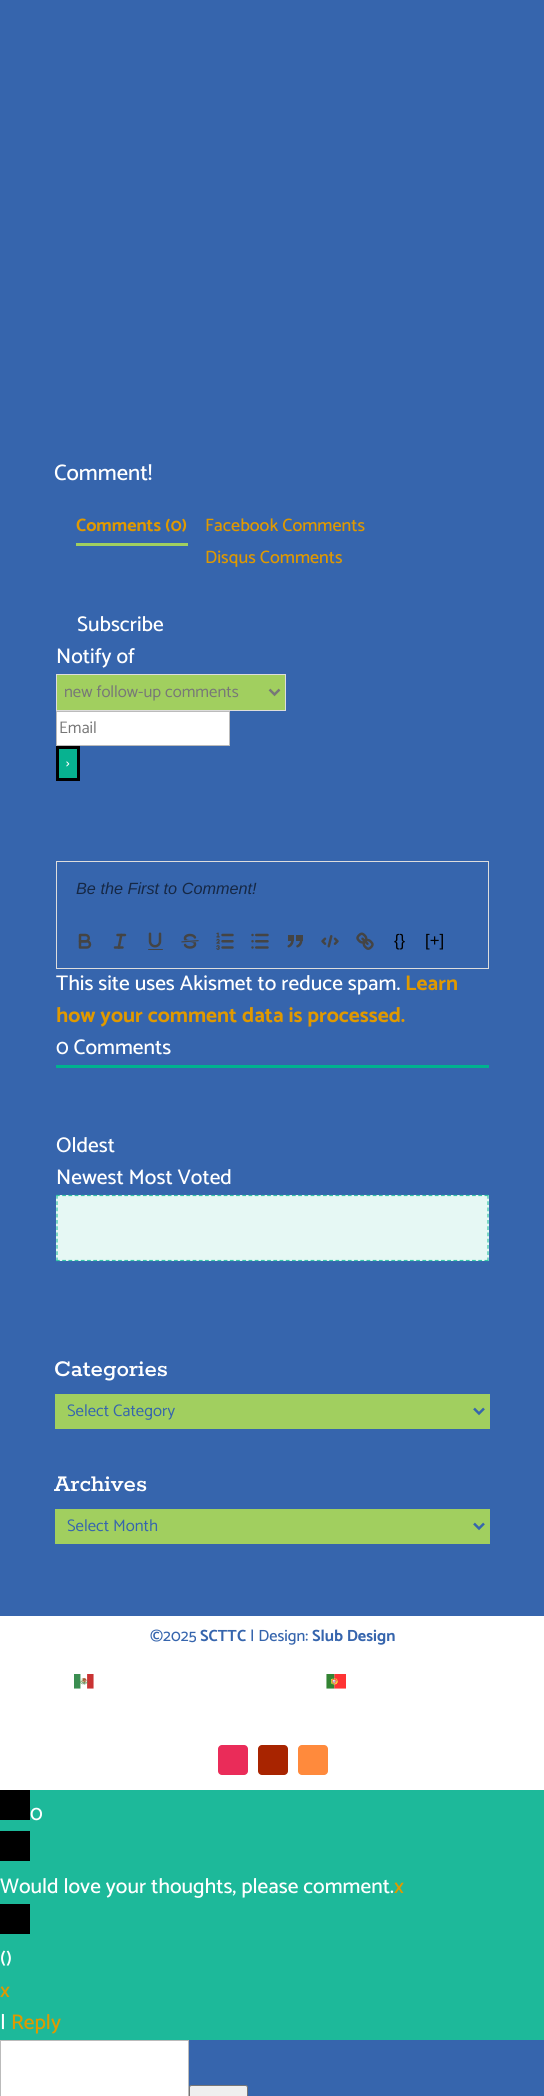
#include <cairo.h>
#include <math.h>
#include <stddef.h>


static void rgb(cairo_t *cr, int r, int g, int b)
{
	cairo_set_source_rgb(cr, r / 255.0, g / 255.0, b / 255.0);
}

static void face(cairo_t *cr, const char *family, double size, int italic, int bold)
{
	cairo_select_font_face(cr, family, italic ? CAIRO_FONT_SLANT_ITALIC : CAIRO_FONT_SLANT_NORMAL,
		bold ? CAIRO_FONT_WEIGHT_BOLD : CAIRO_FONT_WEIGHT_NORMAL);
	cairo_set_font_size(cr, size);
}

static void label(cairo_t *cr, double x, double y, const char *s)
{
	cairo_move_to(cr, x, y);
	cairo_show_text(cr, s);
}

static void rect(cairo_t *cr, double x, double y, double w, double h)
{
	cairo_rectangle(cr, x, y, w, h);
	cairo_fill(cr);
}

static void rrect(cairo_t *cr, double x, double y, double w, double h, double r)
{
	cairo_new_sub_path(cr);
	cairo_arc(cr, x + w - r, y + h - r, r, 0, M_PI / 2);
	cairo_arc(cr, x + r, y + h - r, r, M_PI / 2, M_PI);
	cairo_arc(cr, x + r, y + r, r, M_PI, 1.5 * M_PI);
	cairo_arc(cr, x + w - r, y + r, r, 1.5 * M_PI, 2 * M_PI);
	cairo_close_path(cr);
}

static void image(cairo_t *cr, const char *path, double x, double y, double w, double h)
{
	cairo_surface_t *image = cairo_image_surface_create_from_png(path);
	cairo_save(cr);
	cairo_set_source_surface(cr, image, x, y);
	cairo_rectangle(cr, x, y, w, h);
	cairo_fill(cr);
	cairo_restore(cr);
	cairo_surface_destroy(image);
}

static void draw(cairo_t *cr) {
	rgb(cr, 54, 101, 173);
	cairo_paint(cr);
	face(cr, "Catamaran Thin", 22.5, 0, 0);
	rgb(cr, 255, 255, 255);
	label(cr, 54, 480, "Comment!");
	rgb(cr, 161, 207, 95);
	rect(cr, 76, 543, 112, 3);
	face(cr, "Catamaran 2 Thin", 18, 0, 0);
	rgb(cr, 224, 153, 0);
	label(cr, 76, 531, "Comments (0)");
	face(cr, "Catamaran Thin", 18, 0, 0);
	label(cr, 205, 531, "Facebook Comments");
	label(cr, 205, 563, "Disqus Comments");
	face(cr, "Catamaran Thin", 21.25, 0, 0);
	rgb(cr, 255, 255, 255);
	label(cr, 77, 631, "Subscribe");
	label(cr, 56, 663, "Notify of");
	rgb(cr, 161, 207, 95);
	cairo_rectangle(cr, 56.5, 674.5, 229, 36);
	cairo_fill_preserve(cr);
	rgb(cr, 221, 221, 221);
	cairo_set_line_width(cr, 1);
	cairo_stroke(cr);
	cairo_new_path(cr);
	cairo_move_to(cr, 269.5, 689.5);
	cairo_line_to(cr, 274.5, 694.5);
	cairo_line_to(cr, 279.5, 689.5);
	rgb(cr, 119, 119, 119);
	cairo_set_line_width(cr, 2.5);
	cairo_stroke(cr);
	face(cr, "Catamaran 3 Thin", 16.75, 0, 0);
	label(cr, 64, 697, "new follow-up comments");
	rgb(cr, 255, 255, 255);
	cairo_rectangle(cr, 56.5, 711.5, 173, 34);
	cairo_fill_preserve(cr);
	rgb(cr, 187, 187, 187);
	cairo_set_line_width(cr, 1);
	cairo_stroke(cr);
	rgb(cr, 119, 119, 119);
	label(cr, 59, 733, "Email");
	rgb(cr, 7, 178, 144);
	cairo_rectangle(cr, 57.5, 747.5, 21, 32);
	cairo_fill_preserve(cr);
	rgb(cr, 0, 0, 0);
	cairo_set_line_width(cr, 3);
	cairo_stroke(cr);
	rgb(cr, 255, 255, 255);
	label(cr, 66, 768, "›");
	rgb(cr, 221, 221, 221);
	rect(cr, 56, 861, 433, 1);
	rect(cr, 488, 861, 1, 55);
	rect(cr, 56, 861, 1, 55);
	face(cr, "Liberation Sans", 16.25, 1, 0);
	rgb(cr, 22, 40, 69);
	label(cr, 76, 894, "Be the First to Comment!");
	rgb(cr, 221, 221, 221);
	rect(cr, 488, 916, 1, 53);
	rect(cr, 56, 968, 433, 1);
	rect(cr, 56, 916, 1, 53);
	image(cr, "image0.png", 78, 933, 14, 16);
	image(cr, "image1.png", 113, 933, 14, 16);
	image(cr, "image2.png", 148, 932, 15, 18);
	image(cr, "image3.png", 181, 933, 18, 16);
	image(cr, "image4.png", 216, 932, 18, 18);
	image(cr, "image5.png", 251, 933, 18, 16);
	image(cr, "image6.png", 287, 935, 16, 13);
	image(cr, "image7.png", 321, 935, 18, 13);
	image(cr, "image8.png", 356, 932, 18, 18);
	face(cr, "Liberation Sans", 16.75, 0, 0);
	rgb(cr, 0, 0, 0);
	label(cr, 394, 946, "{}");
	label(cr, 425, 946, "[+]");
	face(cr, "Catamaran Thin", 21.25, 0, 0);
	rgb(cr, 255, 255, 255);
	label(cr, 56, 990, "This site uses Akismet to reduce spam.");
	face(cr, "Catamaran 2 Thin", 21.25, 0, 0);
	rgb(cr, 224, 153, 0);
	label(cr, 405, 990, "Learn");
	label(cr, 56, 1022, "how your comment data is processed.");
	rgb(cr, 0, 179, 143);
	rect(cr, 56, 1065, 433, 3);
	face(cr, "Catamaran Thin", 21.25, 0, 0);
	rgb(cr, 255, 255, 255);
	label(cr, 56, 1054, "0 Comments");
	label(cr, 56, 1152, "Oldest");
	label(cr, 56, 1184, "Newest Most Voted");
	rgb(cr, 230, 248, 244);
	rect(cr, 56, 1195, 433, 66);
	cairo_new_path(cr);
	cairo_move_to(cr, 56, 1195.5);
	cairo_line_to(cr, 489, 1195.5);
	rgb(cr, 51, 195, 166);
	cairo_set_line_width(cr, 1.2);
	cairo_set_dash(cr, (double[]){3.75, 2.46}, 2, 0);
	cairo_stroke(cr);
	cairo_new_path(cr);
	cairo_move_to(cr, 488, 1195);
	cairo_line_to(cr, 488, 1261);
	cairo_set_dash(cr, (double[]){3.75, 2.5}, 2, 0);
	cairo_stroke(cr);
	cairo_new_path(cr);
	cairo_move_to(cr, 56, 1260.5);
	cairo_line_to(cr, 489, 1260.5);
	cairo_set_dash(cr, (double[]){3.75, 2.46}, 2, 0);
	cairo_stroke(cr);
	cairo_new_path(cr);
	cairo_move_to(cr, 57, 1195);
	cairo_line_to(cr, 57, 1261);
	cairo_set_dash(cr, (double[]){3.75, 2.5}, 2, 0);
	cairo_stroke(cr);
	face(cr, "Rokkitt SemiBold", 25, 0, 0);
	rgb(cr, 255, 255, 255);
	label(cr, 54, 1376, "Categories");
	rgb(cr, 161, 207, 95);
	rect(cr, 55, 1394, 435, 35);
	cairo_new_path(cr);
	cairo_move_to(cr, 474, 1408.5);
	cairo_line_to(cr, 479, 1413.5);
	cairo_line_to(cr, 484, 1408.5);
	rgb(cr, 54, 101, 173);
	cairo_set_line_width(cr, 2.5);
	cairo_set_dash(cr, NULL, 0, 0);
	cairo_stroke(cr);
	face(cr, "Catamaran 3 Thin", 16.75, 0, 0);
	label(cr, 67, 1416, "Select Category");
	face(cr, "Rokkitt SemiBold", 25, 0, 0);
	rgb(cr, 255, 255, 255);
	label(cr, 54, 1491, "Archives");
	rgb(cr, 161, 207, 95);
	rect(cr, 55, 1509, 435, 35);
	cairo_new_path(cr);
	cairo_move_to(cr, 474, 1523.5);
	cairo_line_to(cr, 479, 1528.5);
	cairo_line_to(cr, 484, 1523.5);
	rgb(cr, 54, 101, 173);
	cairo_stroke(cr);
	face(cr, "Catamaran 3 Thin", 16.75, 0, 0);
	label(cr, 67, 1531, "Select Month");
	rgb(cr, 255, 255, 255);
	rect(cr, 0, 1616, 544, 174);
	face(cr, "Catamaran Thin", 16.25, 0, 0);
	rgb(cr, 54, 101, 173);
	label(cr, 150, 1641, "©2025");
	face(cr, "Catamaran 2 Thin", 16.25, 0, 0);
	label(cr, 200, 1641, "SCTTC");
	face(cr, "Catamaran Thin", 16.25, 0, 0);
	label(cr, 250, 1641, "| Design:");
	face(cr, "Catamaran 2 Thin", 16.25, 0, 0);
	label(cr, 312, 1641, "Slub Design");
	image(cr, "image9.png", 74, 1674, 20, 15);
	image(cr, "image10.png", 326, 1674, 20, 15);
	rgb(cr, 234, 44, 89);
	rrect(cr, 218, 1745, 30, 30, 4);
	cairo_fill(cr);
	rgb(cr, 168, 36, 0);
	rrect(cr, 258, 1745, 30, 30, 4);
	cairo_fill(cr);
	rgb(cr, 255, 138, 60);
	rrect(cr, 298, 1745, 30, 30, 4);
	cairo_fill(cr);
	rgb(cr, 29, 185, 154);
	rect(cr, 0, 1790, 544, 250);
	rgb(cr, 0, 0, 0);
	rect(cr, 0, 1790, 30, 30);
	face(cr, "Catamaran Thin", 21.25, 0, 0);
	rgb(cr, 255, 255, 255);
	label(cr, 30, 1820, "0");
	rgb(cr, 0, 0, 0);
	rect(cr, 0, 1831, 30, 30);
	rgb(cr, 255, 255, 255);
	label(cr, 0, 1893, "Would love your thoughts, please comment.");
	rgb(cr, 224, 153, 0);
	label(cr, 394, 1893, "x");
	rgb(cr, 0, 0, 0);
	rect(cr, 0, 1904, 30, 30);
	rgb(cr, 255, 255, 255);
	label(cr, 0, 1965, "()");
	rgb(cr, 224, 153, 0);
	label(cr, 0, 1997, "x");
	rgb(cr, 255, 255, 255);
	label(cr, 0, 2029, "|");
	rgb(cr, 224, 153, 0);
	label(cr, 11, 2029, "Reply");
	rgb(cr, 255, 255, 255);
	cairo_rectangle(cr, 0.5, 2040.5, 188, 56);
	cairo_fill_preserve(cr);
	rgb(cr, 187, 187, 187);
	cairo_set_line_width(cr, 1);
	cairo_stroke(cr);
	rgb(cr, 239, 239, 239);
	rrect(cr, 189.5, 2085.5, 58, 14, 2);
	cairo_fill_preserve(cr);
	rgb(cr, 118, 118, 118);
	cairo_stroke(cr);
}

int main(void) {
	cairo_surface_t *surface = cairo_image_surface_create(CAIRO_FORMAT_RGB24, 544, 2096);
	cairo_t *cr = cairo_create(surface);
	cairo_font_options_t *options = cairo_font_options_create();
	cairo_font_options_set_hint_metrics(options, CAIRO_HINT_METRICS_OFF);
	cairo_font_options_set_hint_style(options, CAIRO_HINT_STYLE_NONE);
	cairo_set_font_options(cr, options);
	cairo_set_miter_limit(cr, 4);
	draw(cr);
	cairo_surface_write_to_png(surface, "render.png");
	cairo_font_options_destroy(options);
	cairo_destroy(cr);
	cairo_surface_destroy(surface);
	return 0;
}
